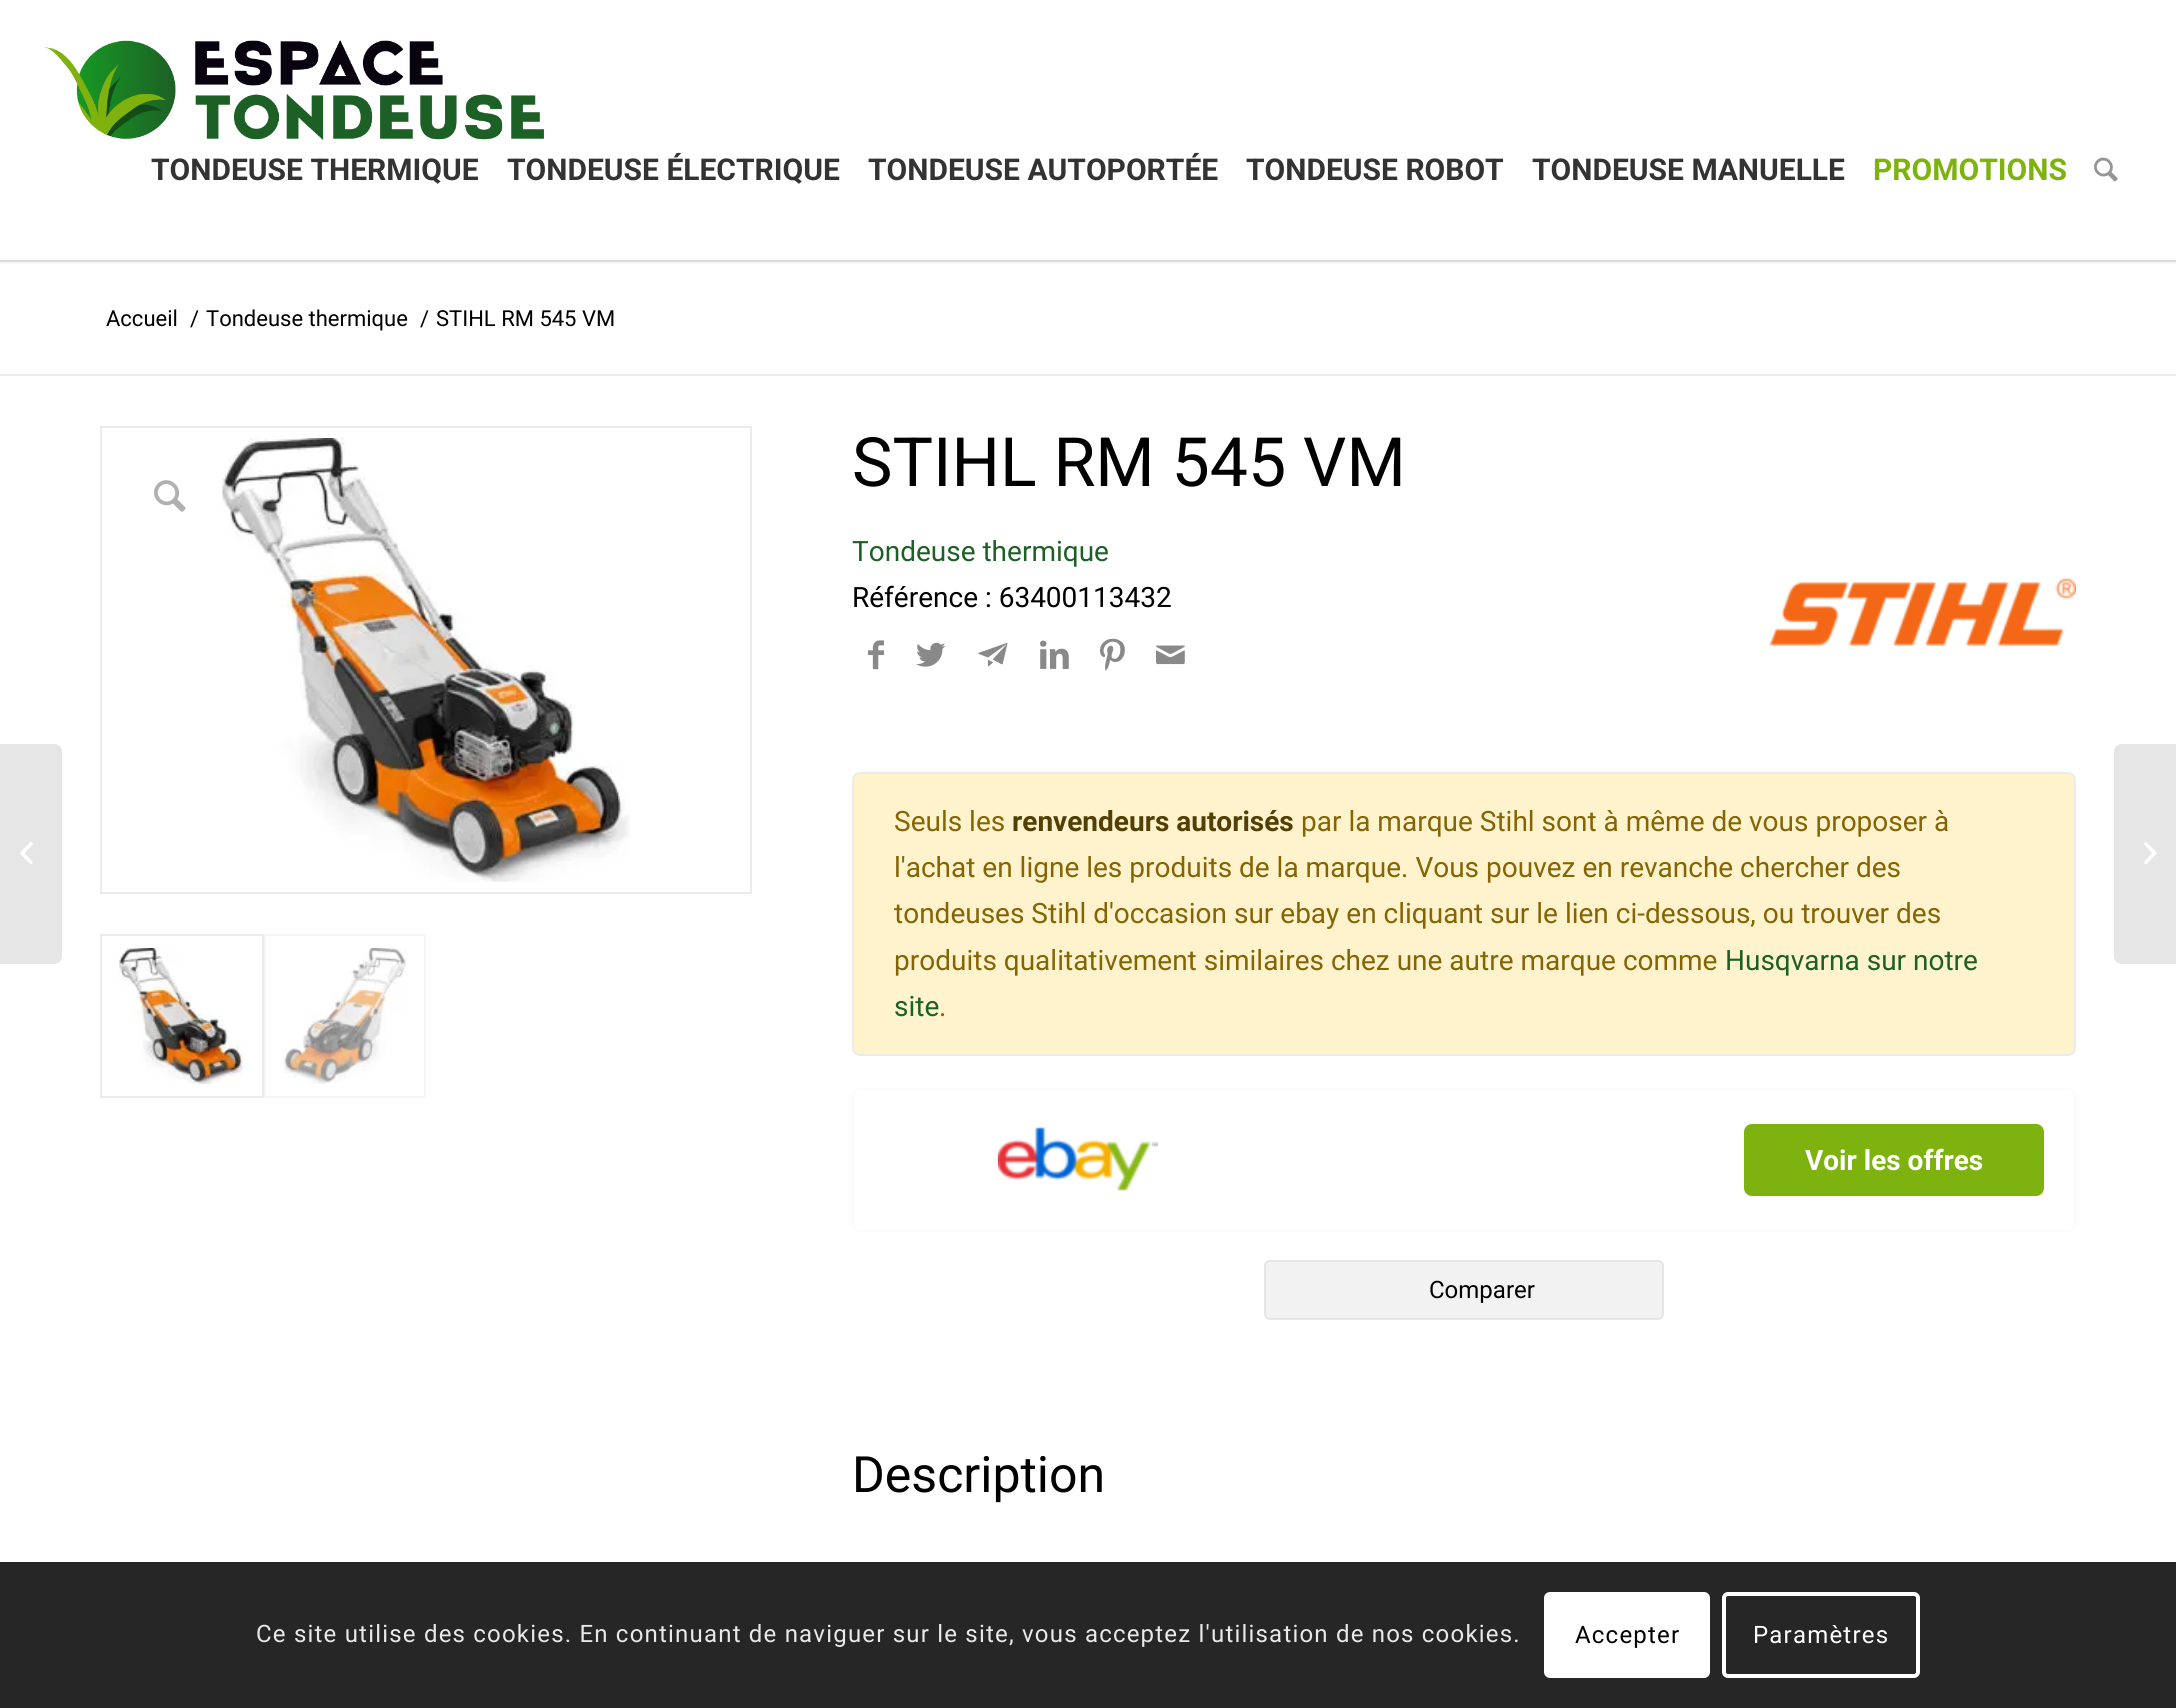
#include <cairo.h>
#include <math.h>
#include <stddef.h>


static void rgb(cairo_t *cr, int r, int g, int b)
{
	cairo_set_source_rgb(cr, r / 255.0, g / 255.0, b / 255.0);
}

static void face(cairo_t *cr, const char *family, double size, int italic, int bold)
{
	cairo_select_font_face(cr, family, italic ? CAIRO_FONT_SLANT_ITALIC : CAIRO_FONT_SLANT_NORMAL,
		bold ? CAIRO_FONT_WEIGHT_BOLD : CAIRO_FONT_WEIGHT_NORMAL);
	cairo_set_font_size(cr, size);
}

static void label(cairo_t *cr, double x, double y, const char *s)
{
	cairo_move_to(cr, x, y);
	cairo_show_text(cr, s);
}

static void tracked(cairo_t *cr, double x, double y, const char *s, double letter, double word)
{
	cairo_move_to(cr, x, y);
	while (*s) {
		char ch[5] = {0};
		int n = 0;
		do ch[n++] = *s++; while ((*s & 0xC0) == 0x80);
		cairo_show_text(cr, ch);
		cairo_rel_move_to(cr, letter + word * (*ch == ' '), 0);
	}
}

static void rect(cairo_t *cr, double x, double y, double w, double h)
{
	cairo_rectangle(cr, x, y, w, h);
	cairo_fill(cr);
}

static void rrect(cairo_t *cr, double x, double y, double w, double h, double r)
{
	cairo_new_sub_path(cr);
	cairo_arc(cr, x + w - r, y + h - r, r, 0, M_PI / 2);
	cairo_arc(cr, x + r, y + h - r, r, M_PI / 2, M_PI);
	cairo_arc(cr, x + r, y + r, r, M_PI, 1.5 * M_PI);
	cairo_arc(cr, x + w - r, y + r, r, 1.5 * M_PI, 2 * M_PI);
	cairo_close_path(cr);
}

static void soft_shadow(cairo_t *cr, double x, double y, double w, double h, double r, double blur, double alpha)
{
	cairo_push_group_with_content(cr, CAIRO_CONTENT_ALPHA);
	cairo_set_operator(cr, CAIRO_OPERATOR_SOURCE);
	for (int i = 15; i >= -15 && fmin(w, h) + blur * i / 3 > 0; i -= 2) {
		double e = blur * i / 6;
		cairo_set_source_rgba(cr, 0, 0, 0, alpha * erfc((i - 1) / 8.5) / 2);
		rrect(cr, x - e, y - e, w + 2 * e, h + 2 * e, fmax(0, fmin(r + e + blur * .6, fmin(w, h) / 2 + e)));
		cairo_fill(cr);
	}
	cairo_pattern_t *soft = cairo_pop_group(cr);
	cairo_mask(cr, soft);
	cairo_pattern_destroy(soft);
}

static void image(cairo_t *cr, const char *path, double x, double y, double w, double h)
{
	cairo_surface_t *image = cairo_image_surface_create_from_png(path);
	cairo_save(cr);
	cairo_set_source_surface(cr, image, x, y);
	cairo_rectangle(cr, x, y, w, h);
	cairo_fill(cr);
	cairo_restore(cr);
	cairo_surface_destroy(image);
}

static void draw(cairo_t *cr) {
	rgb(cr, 255, 255, 255);
	cairo_paint(cr);
	rgb(cr, 235, 235, 235);
	rect(cr, 0, 260, 2176, 2);
	cairo_save(cr);
	cairo_rectangle(cr, 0, 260, 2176, 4);
	cairo_clip(cr);
	rgb(cr, 0, 0, 0);
	soft_shadow(cr, -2, -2, 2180, 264, 0, 2, 0.1);
	cairo_restore(cr);
	image(cr, "image0.png", 44, 40, 500, 100);
	face(cr, "Roboto", 30, 0, 1);
	rgb(cr, 51, 51, 51);
	label(cr, 151, 180, "TONDEUSE THERMIQUE");
	label(cr, 507, 180, "TONDEUSE ÉLECTRIQUE");
	label(cr, 868, 180, "TONDEUSE AUTOPORTÉE");
	label(cr, 1246, 180, "TONDEUSE ROBOT");
	label(cr, 1532, 180, "TONDEUSE MANUELLE");
	rgb(cr, 126, 178, 15);
	label(cr, 1873, 180, "PROMOTIONS");
	image(cr, "image1.png", 2094, 157, 24, 25);
	rgb(cr, 230, 230, 230);
	cairo_new_path(cr);
	cairo_move_to(cr, 0, 744);
	cairo_line_to(cr, 54, 744);
	cairo_curve_to(cr, 58.5, 744, 62, 747.5, 62, 752);
	cairo_line_to(cr, 62, 956);
	cairo_curve_to(cr, 62, 960.5, 58.5, 964, 54, 964);
	cairo_line_to(cr, 0, 964);
	cairo_close_path(cr);
	cairo_fill(cr);
	image(cr, "image2.png", 20, 842, 13, 22);
	face(cr, "Roboto", 22, 0, 0);
	rgb(cr, 0, 0, 0);
	label(cr, 106, 326, "Accueil");
	label(cr, 190, 326, "/");
	label(cr, 206, 326, "Tondeuse thermique");
	label(cr, 420, 326, "/");
	label(cr, 436, 326, "STIHL RM 545 VM");
	rgb(cr, 235, 235, 235);
	rect(cr, 0, 374, 2176, 2);
	cairo_rectangle(cr, 101, 427, 650, 466);
	cairo_stroke(cr);
	image(cr, "image3.png", 222, 438, 408, 444);
	cairo_rectangle(cr, 101, 935, 162, 162);
	cairo_stroke(cr);
	image(cr, "image4.png", 119, 948, 126, 136);
	cairo_rectangle(cr, 265, 935, 160, 162);
	rgb(cr, 245, 245, 245);
	cairo_stroke(cr);
	image(cr, "image5.png", 283, 948, 124, 136);
	image(cr, "image6.png", 154, 480, 32, 32);
	face(cr, "Roboto", 68, 0, 0);
	rgb(cr, 0, 0, 0);
	label(cr, 852, 486, "STIHL RM 545 VM");
	face(cr, "Roboto", 28, 0, 0);
	rgb(cr, 29, 96, 38);
	label(cr, 852, 561, "Tondeuse thermique");
	rgb(cr, 0, 0, 0);
	label(cr, 852, 607, "Référence : 63400113432");
	image(cr, "image7.png", 868, 640, 16, 30);
	image(cr, "image8.png", 916, 642, 30, 25);
	image(cr, "image9.png", 978, 643, 30, 24);
	image(cr, "image10.png", 1040, 640, 29, 29);
	image(cr, "image11.png", 1100, 638, 25, 33);
	image(cr, "image12.png", 1156, 645, 29, 20);
	image(cr, "image13.png", 1770, 578, 306, 68);
	rgb(cr, 255, 243, 205);
	rrect(cr, 853, 773, 1222, 282, 7);
	cairo_fill_preserve(cr);
	rgb(cr, 235, 235, 235);
	cairo_stroke(cr);
	rgb(cr, 133, 100, 4);
	label(cr, 894, 831, "Seuls les");
	face(cr, "Roboto", 28, 0, 1);
	rgb(cr, 83, 63, 3);
	label(cr, 1012, 831, "renvendeurs autorisés");
	face(cr, "Roboto", 28, 0, 0);
	rgb(cr, 133, 100, 4);
	label(cr, 1301, 831, "par la marque Stihl sont à même de vous proposer à");
	label(cr, 894, 877, "l'achat en ligne les produits de la marque. Vous pouvez en revanche chercher des");
	label(cr, 894, 923, "tondeuses Stihl d'occasion sur ebay en cliquant sur le lien ci-dessous, ou trouver des");
	label(cr, 894, 970, "produits qualitativement similaires chez une autre marque comme");
	rgb(cr, 29, 96, 38);
	label(cr, 1725, 970, "Husqvarna sur notre");
	label(cr, 894, 1016, "site");
	rgb(cr, 133, 100, 4);
	label(cr, 939, 1016, ".");
	rrect(cr, 853, 1089, 1222, 142, 7);
	rgb(cr, 250, 250, 250);
	cairo_stroke(cr);
	image(cr, "image14.png", 998, 1127, 160, 64);
	rgb(cr, 126, 178, 15);
	rrect(cr, 1745, 1125, 298, 70, 7);
	cairo_fill_preserve(cr);
	cairo_stroke(cr);
	face(cr, "Roboto", 28, 0, 1);
	rgb(cr, 255, 255, 255);
	label(cr, 1805, 1170, "Voir les offres");
	rgb(cr, 242, 242, 242);
	rrect(cr, 1265, 1261, 398, 58, 5);
	cairo_fill_preserve(cr);
	rgb(cr, 230, 230, 230);
	cairo_stroke(cr);
	face(cr, "Roboto", 24, 0, 0);
	rgb(cr, 0, 0, 0);
	label(cr, 1429, 1298, "Comparer");
	face(cr, "Roboto", 50, 0, 0);
	label(cr, 852, 1492, "Description");
	rgb(cr, 230, 230, 230);
	cairo_new_path(cr);
	cairo_move_to(cr, 2122, 744);
	cairo_line_to(cr, 2176, 744);
	cairo_line_to(cr, 2176, 964);
	cairo_line_to(cr, 2122, 964);
	cairo_curve_to(cr, 2117.5, 964, 2114, 960.5, 2114, 956);
	cairo_line_to(cr, 2114, 752);
	cairo_curve_to(cr, 2114, 747.5, 2117.5, 744, 2122, 744);
	cairo_close_path(cr);
	cairo_fill(cr);
	image(cr, "image15.png", 2144, 842, 13, 23);
	cairo_set_source_rgba(cr, 0, 0, 0, 0.85);
	rect(cr, 0, 1562, 2176, 146);
	face(cr, "Roboto", 24, 0, 0);
	rgb(cr, 233, 233, 233);
	tracked(cr, 256, 1642, "Ce site utilise des cookies. En continuant de naviguer sur le site, vous acceptez l'utilisation de nos cookies.", 1.2, 0);
	rgb(cr, 255, 255, 255);
	rrect(cr, 1544, 1592, 166, 86, 6);
	cairo_fill(cr);
	rgb(cr, 0, 0, 0);
	tracked(cr, 1575, 1643, "Accepter", 1.2, 0);
	rrect(cr, 1724, 1594, 194, 82, 4);
	rgb(cr, 255, 255, 255);
	cairo_set_line_width(cr, 4);
	cairo_stroke(cr);
	tracked(cr, 1753, 1643, "Paramètres", 1.2, 0);
}

int main(void) {
	cairo_surface_t *surface = cairo_image_surface_create(CAIRO_FORMAT_RGB24, 2176, 1708);
	cairo_t *cr = cairo_create(surface);
	cairo_font_options_t *options = cairo_font_options_create();
	cairo_font_options_set_hint_metrics(options, CAIRO_HINT_METRICS_OFF);
	cairo_font_options_set_hint_style(options, CAIRO_HINT_STYLE_NONE);
	cairo_set_font_options(cr, options);
	cairo_set_miter_limit(cr, 4);
	draw(cr);
	cairo_surface_write_to_png(surface, "render.png");
	cairo_font_options_destroy(options);
	cairo_destroy(cr);
	cairo_surface_destroy(surface);
	return 0;
}
